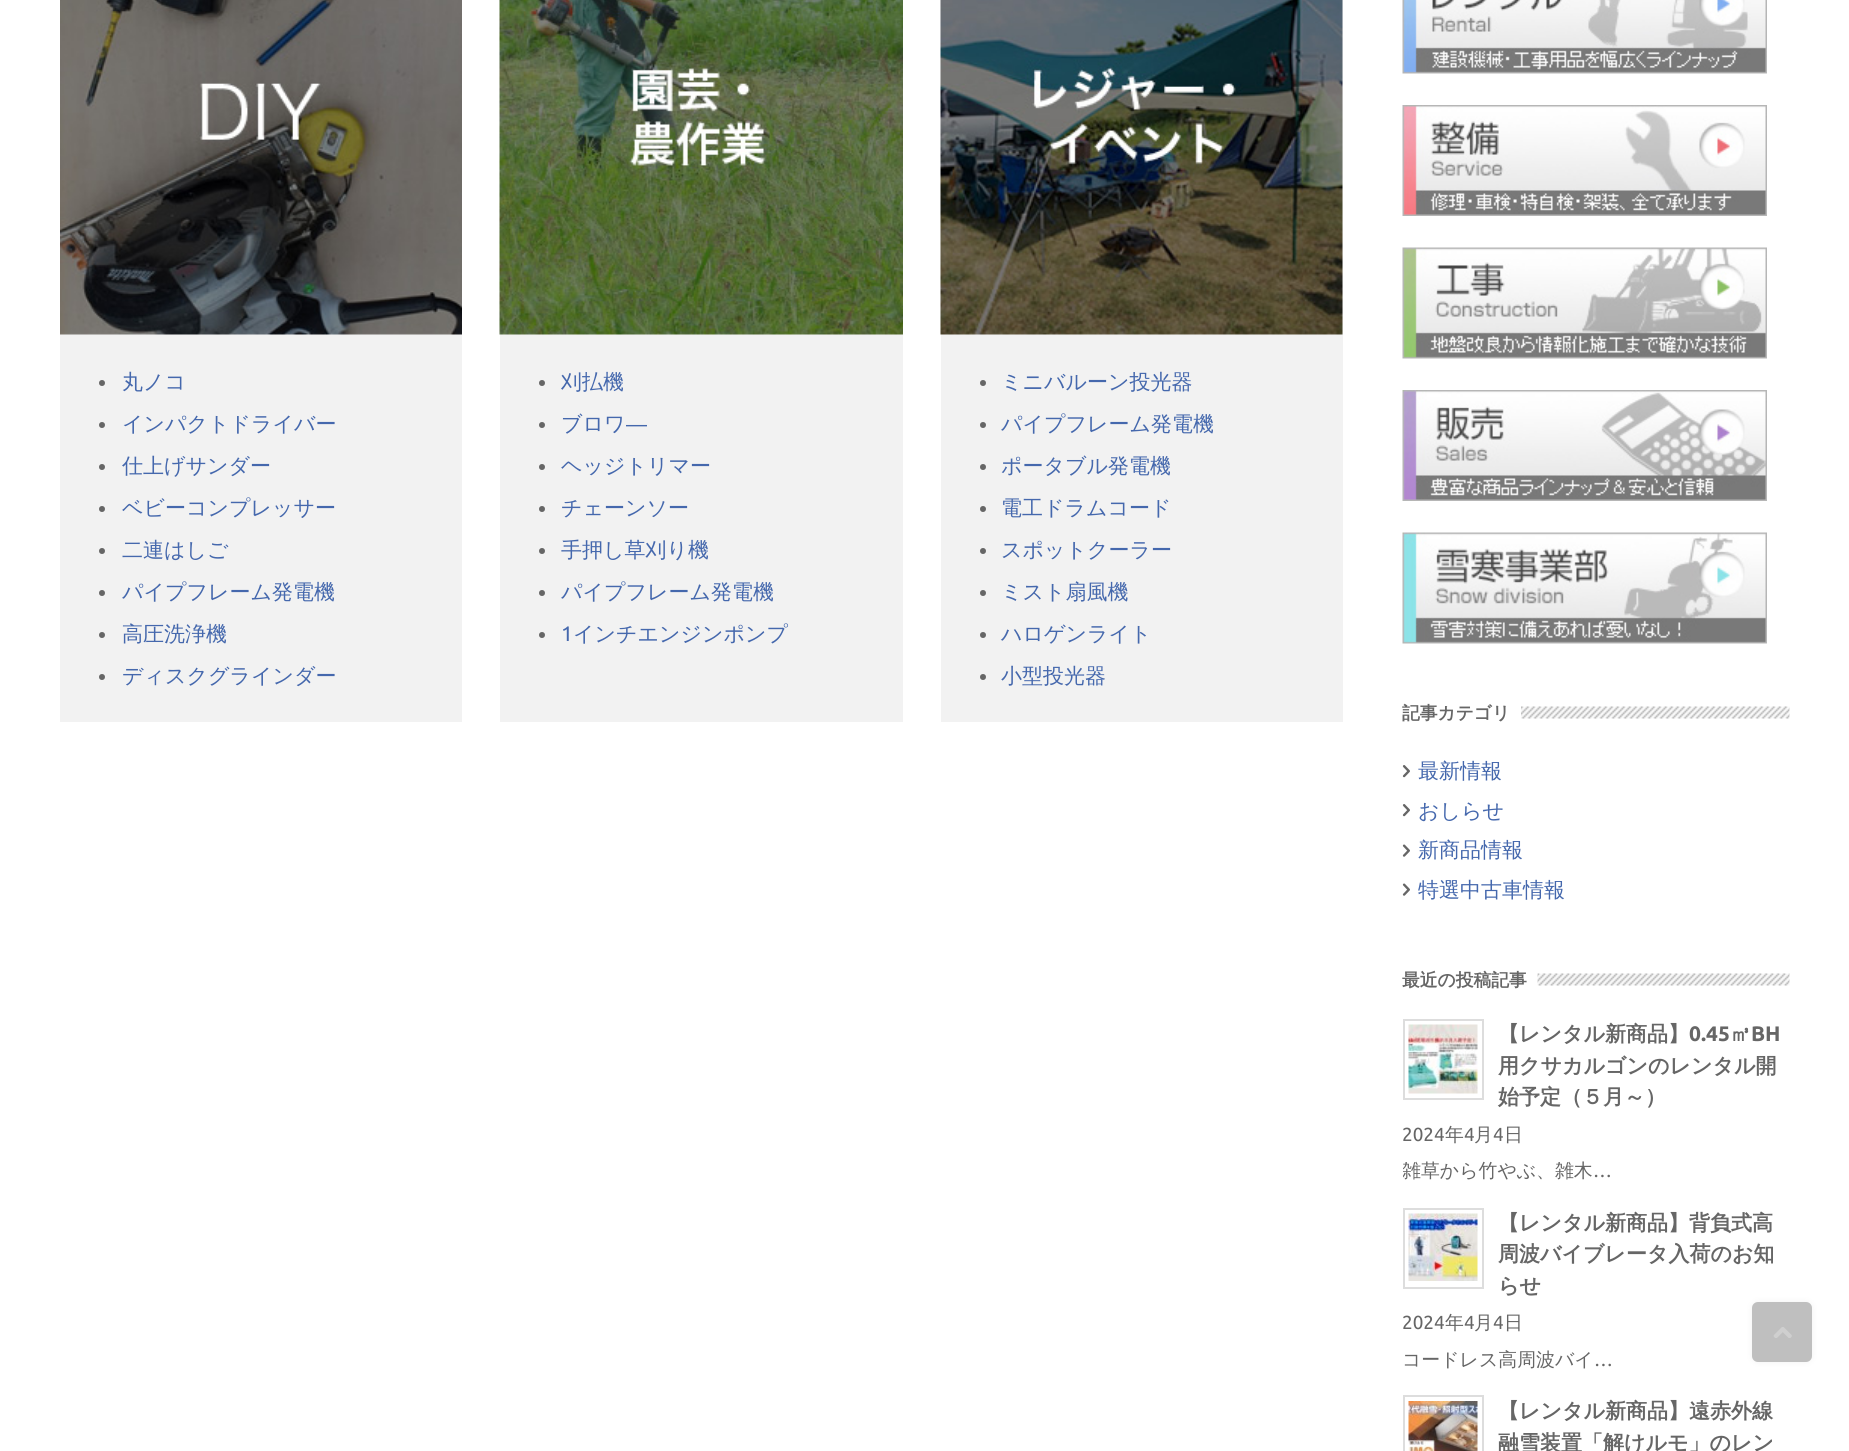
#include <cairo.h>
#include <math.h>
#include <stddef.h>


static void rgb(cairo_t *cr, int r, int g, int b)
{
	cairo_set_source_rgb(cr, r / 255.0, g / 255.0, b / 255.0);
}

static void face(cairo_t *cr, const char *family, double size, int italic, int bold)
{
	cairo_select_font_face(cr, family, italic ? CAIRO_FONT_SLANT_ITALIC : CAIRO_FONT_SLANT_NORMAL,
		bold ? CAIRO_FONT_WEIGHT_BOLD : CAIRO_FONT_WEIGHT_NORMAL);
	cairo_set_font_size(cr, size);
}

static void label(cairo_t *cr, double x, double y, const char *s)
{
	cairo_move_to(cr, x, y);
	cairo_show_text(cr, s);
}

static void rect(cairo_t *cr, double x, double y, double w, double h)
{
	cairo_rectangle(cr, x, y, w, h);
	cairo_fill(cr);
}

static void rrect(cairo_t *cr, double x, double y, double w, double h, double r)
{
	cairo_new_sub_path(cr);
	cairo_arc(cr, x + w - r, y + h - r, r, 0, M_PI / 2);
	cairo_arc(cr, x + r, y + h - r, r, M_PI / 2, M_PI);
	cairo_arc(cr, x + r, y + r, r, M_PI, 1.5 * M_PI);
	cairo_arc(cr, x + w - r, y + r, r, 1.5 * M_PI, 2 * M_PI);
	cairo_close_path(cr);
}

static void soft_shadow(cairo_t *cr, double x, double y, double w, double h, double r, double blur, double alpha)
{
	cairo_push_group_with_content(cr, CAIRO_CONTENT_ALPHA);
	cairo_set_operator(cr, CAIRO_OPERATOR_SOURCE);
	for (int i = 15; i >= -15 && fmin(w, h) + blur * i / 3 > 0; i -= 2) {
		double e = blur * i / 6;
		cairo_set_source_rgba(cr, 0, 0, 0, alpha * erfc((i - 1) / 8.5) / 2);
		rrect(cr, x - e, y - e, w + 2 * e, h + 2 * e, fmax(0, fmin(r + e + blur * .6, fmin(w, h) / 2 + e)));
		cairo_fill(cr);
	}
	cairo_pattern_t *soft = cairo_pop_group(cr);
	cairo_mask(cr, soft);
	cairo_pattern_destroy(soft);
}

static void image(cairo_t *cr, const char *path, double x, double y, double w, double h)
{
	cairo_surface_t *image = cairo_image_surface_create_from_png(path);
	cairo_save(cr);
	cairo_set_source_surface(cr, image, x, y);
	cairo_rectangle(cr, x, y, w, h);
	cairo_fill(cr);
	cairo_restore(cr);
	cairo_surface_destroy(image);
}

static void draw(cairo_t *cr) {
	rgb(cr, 255, 255, 255);
	cairo_paint(cr);
	rgb(cr, 242, 242, 242);
	rect(cr, 60, 334, 402, 388);
	image(cr, "image0.png", 60, 0, 402, 335);
	rgb(cr, 102, 102, 102);
	cairo_arc(cr, 102, 383, 3, 0, 2 * M_PI);
	cairo_fill(cr);
	face(cr, "WenQuanYi Zen Hei Medium", 21, 0, 0);
	rgb(cr, 69, 104, 173);
	label(cr, 122, 389, "丸ノコ");
	rgb(cr, 102, 102, 102);
	cairo_new_path(cr);
	cairo_arc(cr, 102, 425, 3, 0, 2 * M_PI);
	cairo_fill(cr);
	rgb(cr, 69, 104, 173);
	label(cr, 122, 431, "インパクトドライバー");
	rgb(cr, 102, 102, 102);
	cairo_new_path(cr);
	cairo_arc(cr, 102, 467, 3, 0, 2 * M_PI);
	cairo_fill(cr);
	rgb(cr, 69, 104, 173);
	label(cr, 122, 473, "仕上げサンダー");
	rgb(cr, 102, 102, 102);
	cairo_new_path(cr);
	cairo_arc(cr, 102, 509, 3, 0, 2 * M_PI);
	cairo_fill(cr);
	rgb(cr, 69, 104, 173);
	label(cr, 122, 515, "ベビーコンプレッサー");
	rgb(cr, 102, 102, 102);
	cairo_new_path(cr);
	cairo_arc(cr, 102, 551, 3, 0, 2 * M_PI);
	cairo_fill(cr);
	rgb(cr, 69, 104, 173);
	label(cr, 122, 557, "二連はしご");
	rgb(cr, 102, 102, 102);
	cairo_new_path(cr);
	cairo_arc(cr, 102, 593, 3, 0, 2 * M_PI);
	cairo_fill(cr);
	rgb(cr, 69, 104, 173);
	label(cr, 122, 599, "パイプフレーム発電機");
	rgb(cr, 102, 102, 102);
	cairo_new_path(cr);
	cairo_arc(cr, 102, 635, 3, 0, 2 * M_PI);
	cairo_fill(cr);
	rgb(cr, 69, 104, 173);
	label(cr, 122, 641, "高圧洗浄機");
	rgb(cr, 102, 102, 102);
	cairo_new_path(cr);
	cairo_arc(cr, 102, 677, 3, 0, 2 * M_PI);
	cairo_fill(cr);
	rgb(cr, 69, 104, 173);
	label(cr, 122, 683, "ディスクグラインダー");
	rgb(cr, 242, 242, 242);
	rect(cr, 500, 334, 403, 388);
	image(cr, "image1.png", 499, 0, 404, 335);
	rgb(cr, 102, 102, 102);
	cairo_arc(cr, 542, 383, 3, 0, 2 * M_PI);
	cairo_fill(cr);
	rgb(cr, 69, 104, 173);
	label(cr, 561, 389, "刈払機");
	rgb(cr, 102, 102, 102);
	cairo_new_path(cr);
	cairo_arc(cr, 542, 425, 3, 0, 2 * M_PI);
	cairo_fill(cr);
	rgb(cr, 69, 104, 173);
	label(cr, 561, 431, "ブロワ");
	face(cr, "Liberation Sans", 21, 0, 0);
	label(cr, 626, 431, "―");
	rgb(cr, 102, 102, 102);
	cairo_new_path(cr);
	cairo_arc(cr, 542, 467, 3, 0, 2 * M_PI);
	cairo_fill(cr);
	face(cr, "WenQuanYi Zen Hei Medium", 21, 0, 0);
	rgb(cr, 69, 104, 173);
	label(cr, 561, 473, "ヘッジトリマー");
	rgb(cr, 102, 102, 102);
	cairo_new_path(cr);
	cairo_arc(cr, 542, 509, 3, 0, 2 * M_PI);
	cairo_fill(cr);
	rgb(cr, 69, 104, 173);
	label(cr, 561, 515, "チェーンソー");
	rgb(cr, 102, 102, 102);
	cairo_new_path(cr);
	cairo_arc(cr, 542, 551, 3, 0, 2 * M_PI);
	cairo_fill(cr);
	rgb(cr, 69, 104, 173);
	label(cr, 561, 557, "手押し草刈り機");
	rgb(cr, 102, 102, 102);
	cairo_new_path(cr);
	cairo_arc(cr, 542, 593, 3, 0, 2 * M_PI);
	cairo_fill(cr);
	rgb(cr, 69, 104, 173);
	label(cr, 561, 599, "パイプフレーム発電機");
	rgb(cr, 102, 102, 102);
	cairo_new_path(cr);
	cairo_arc(cr, 542, 635, 3, 0, 2 * M_PI);
	cairo_fill(cr);
	face(cr, "Ubuntu", 21, 0, 0);
	rgb(cr, 69, 104, 173);
	label(cr, 561, 641, "1");
	face(cr, "WenQuanYi Zen Hei Medium", 21, 0, 0);
	label(cr, 573, 641, "インチエンジンポンプ");
	rgb(cr, 242, 242, 242);
	rect(cr, 941, 0, 402, 722);
	image(cr, "image2.png", 940, 0, 403, 335);
	rgb(cr, 102, 102, 102);
	cairo_arc(cr, 983, 383, 3, 0, 2 * M_PI);
	cairo_fill(cr);
	rgb(cr, 69, 104, 173);
	label(cr, 1001, 389, "ミニバルーン投光器");
	rgb(cr, 102, 102, 102);
	cairo_new_path(cr);
	cairo_arc(cr, 983, 425, 3, 0, 2 * M_PI);
	cairo_fill(cr);
	rgb(cr, 69, 104, 173);
	label(cr, 1001, 431, "パイプフレーム発電機");
	rgb(cr, 102, 102, 102);
	cairo_new_path(cr);
	cairo_arc(cr, 983, 467, 3, 0, 2 * M_PI);
	cairo_fill(cr);
	rgb(cr, 69, 104, 173);
	label(cr, 1001, 473, "ポータブル発電機");
	rgb(cr, 102, 102, 102);
	cairo_new_path(cr);
	cairo_arc(cr, 983, 509, 3, 0, 2 * M_PI);
	cairo_fill(cr);
	rgb(cr, 69, 104, 173);
	label(cr, 1001, 515, "電工ドラムコード");
	rgb(cr, 102, 102, 102);
	cairo_new_path(cr);
	cairo_arc(cr, 983, 551, 3, 0, 2 * M_PI);
	cairo_fill(cr);
	rgb(cr, 69, 104, 173);
	label(cr, 1001, 557, "スポットクーラー");
	rgb(cr, 102, 102, 102);
	cairo_new_path(cr);
	cairo_arc(cr, 983, 593, 3, 0, 2 * M_PI);
	cairo_fill(cr);
	rgb(cr, 69, 104, 173);
	label(cr, 1001, 599, "ミスト扇風機");
	rgb(cr, 102, 102, 102);
	cairo_new_path(cr);
	cairo_arc(cr, 983, 635, 3, 0, 2 * M_PI);
	cairo_fill(cr);
	rgb(cr, 69, 104, 173);
	label(cr, 1001, 641, "ハロゲンライト");
	rgb(cr, 102, 102, 102);
	cairo_new_path(cr);
	cairo_arc(cr, 983, 677, 3, 0, 2 * M_PI);
	cairo_fill(cr);
	rgb(cr, 69, 104, 173);
	label(cr, 1001, 683, "小型投光器");
	image(cr, "image3.png", 1402, 0, 365, 74);
	image(cr, "image4.png", 1402, 105, 365, 111);
	image(cr, "image5.png", 1402, 247, 365, 112);
	image(cr, "image6.png", 1402, 390, 365, 111);
	image(cr, "image7.png", 1402, 532, 365, 112);
	face(cr, "WenQuanYi Zen Hei", 17.75, 0, 1);
	rgb(cr, 102, 102, 102);
	label(cr, 1402, 719, "記事カテゴリ");
	image(cr, "image8.png", 1521, 706, 269, 13);
	image(cr, "image9.png", 1402, 765, 8, 13);
	face(cr, "WenQuanYi Zen Hei Medium", 21, 0, 0);
	rgb(cr, 69, 104, 173);
	label(cr, 1418, 778, "最新情報");
	image(cr, "image9.png", 1402, 804, 8, 13);
	label(cr, 1418, 818, "おしらせ");
	image(cr, "image10.png", 1402, 844, 8, 13);
	label(cr, 1418, 857, "新商品情報");
	image(cr, "image10.png", 1402, 883, 8, 13);
	label(cr, 1418, 897, "特選中古車情報");
	face(cr, "WenQuanYi Zen Hei", 17.75, 0, 1);
	rgb(cr, 102, 102, 102);
	label(cr, 1402, 986, "最近の投稿記事");
	image(cr, "image11.png", 1537, 973, 253, 13);
	cairo_rectangle(cr, 1404, 1020, 79, 79);
	rgb(cr, 221, 221, 221);
	cairo_stroke(cr);
	image(cr, "image12.png", 1408, 1024, 70, 70);
	face(cr, "WenQuanYi Zen Hei", 21, 0, 1);
	rgb(cr, 102, 102, 102);
	label(cr, 1498, 1041, "【レンタル新商品】");
	face(cr, "Ubuntu", 21, 0, 1);
	label(cr, 1689, 1041, "0.45");
	face(cr, "WenQuanYi Zen Hei", 21, 0, 1);
	label(cr, 1730, 1041, "㎥");
	face(cr, "Ubuntu", 21, 0, 1);
	label(cr, 1751, 1041, "BH");
	face(cr, "WenQuanYi Zen Hei", 21, 0, 1);
	label(cr, 1498, 1073, "用クサカルゴンのレンタル開");
	label(cr, 1498, 1104, "始予定（５月～）");
	face(cr, "Ubuntu", 18.9, 0, 0);
	label(cr, 1402, 1141, "2024");
	face(cr, "WenQuanYi Zen Hei Medium", 18.9, 0, 0);
	label(cr, 1445, 1141, "年");
	face(cr, "Ubuntu", 18.9, 0, 0);
	label(cr, 1464, 1141, "4");
	face(cr, "WenQuanYi Zen Hei Medium", 18.9, 0, 0);
	label(cr, 1474, 1141, "月");
	face(cr, "Ubuntu", 18.9, 0, 0);
	label(cr, 1493, 1141, "4");
	face(cr, "WenQuanYi Zen Hei Medium", 18.9, 0, 0);
	label(cr, 1504, 1141, "日");
	cairo_save(cr);
	cairo_rectangle(cr, 1403, 1019, 387, 168);
	cairo_clip(cr);
	label(cr, 1402, 1177, "雑草から竹やぶ、雑木");
	cairo_restore(cr);
	face(cr, "Ubuntu", 18.9, 0, 0);
	label(cr, 1593, 1177, "…");
	cairo_rectangle(cr, 1404, 1209, 79, 79);
	rgb(cr, 221, 221, 221);
	cairo_stroke(cr);
	image(cr, "image13.png", 1408, 1213, 70, 68);
	face(cr, "WenQuanYi Zen Hei", 21, 0, 1);
	rgb(cr, 102, 102, 102);
	label(cr, 1498, 1230, "【レンタル新商品】背負式高");
	label(cr, 1498, 1261, "周波バイブレータ入荷のお知");
	label(cr, 1498, 1293, "らせ");
	face(cr, "Ubuntu", 18.9, 0, 0);
	label(cr, 1402, 1329, "2024");
	face(cr, "WenQuanYi Zen Hei Medium", 18.9, 0, 0);
	label(cr, 1445, 1329, "年");
	face(cr, "Ubuntu", 18.9, 0, 0);
	label(cr, 1464, 1329, "4");
	face(cr, "WenQuanYi Zen Hei Medium", 18.9, 0, 0);
	label(cr, 1474, 1329, "月");
	face(cr, "Ubuntu", 18.9, 0, 0);
	label(cr, 1493, 1329, "4");
	face(cr, "WenQuanYi Zen Hei Medium", 18.9, 0, 0);
	label(cr, 1504, 1329, "日");
	label(cr, 1402, 1366, "コードレス高周波バイ");
	face(cr, "Ubuntu", 18.9, 0, 0);
	label(cr, 1594, 1366, "…");
	cairo_rectangle(cr, 1404, 1396, 79, 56);
	rgb(cr, 221, 221, 221);
	cairo_stroke(cr);
	image(cr, "image14.png", 1408, 1401, 70, 50);
	face(cr, "WenQuanYi Zen Hei", 21, 0, 1);
	rgb(cr, 102, 102, 102);
	label(cr, 1498, 1418, "【レンタル新商品】遠赤外線");
	label(cr, 1498, 1450, "融雪装置「解けルモ」のレン");
	rgb(cr, 242, 242, 242);
	soft_shadow(cr, 1752, 1302, 60, 60, 6, 3, 1);
	rgb(cr, 191, 191, 191);
	rrect(cr, 1752, 1302, 60, 60, 6);
	cairo_fill(cr);
	image(cr, "image15.png", 1773, 1327, 19, 11);
}

int main(void) {
	cairo_surface_t *surface = cairo_image_surface_create(CAIRO_FORMAT_RGB24, 1849, 1451);
	cairo_t *cr = cairo_create(surface);
	cairo_font_options_t *options = cairo_font_options_create();
	cairo_font_options_set_hint_metrics(options, CAIRO_HINT_METRICS_OFF);
	cairo_font_options_set_hint_style(options, CAIRO_HINT_STYLE_NONE);
	cairo_set_font_options(cr, options);
	cairo_set_miter_limit(cr, 4);
	draw(cr);
	cairo_surface_write_to_png(surface, "render.png");
	cairo_font_options_destroy(options);
	cairo_destroy(cr);
	cairo_surface_destroy(surface);
	return 0;
}
